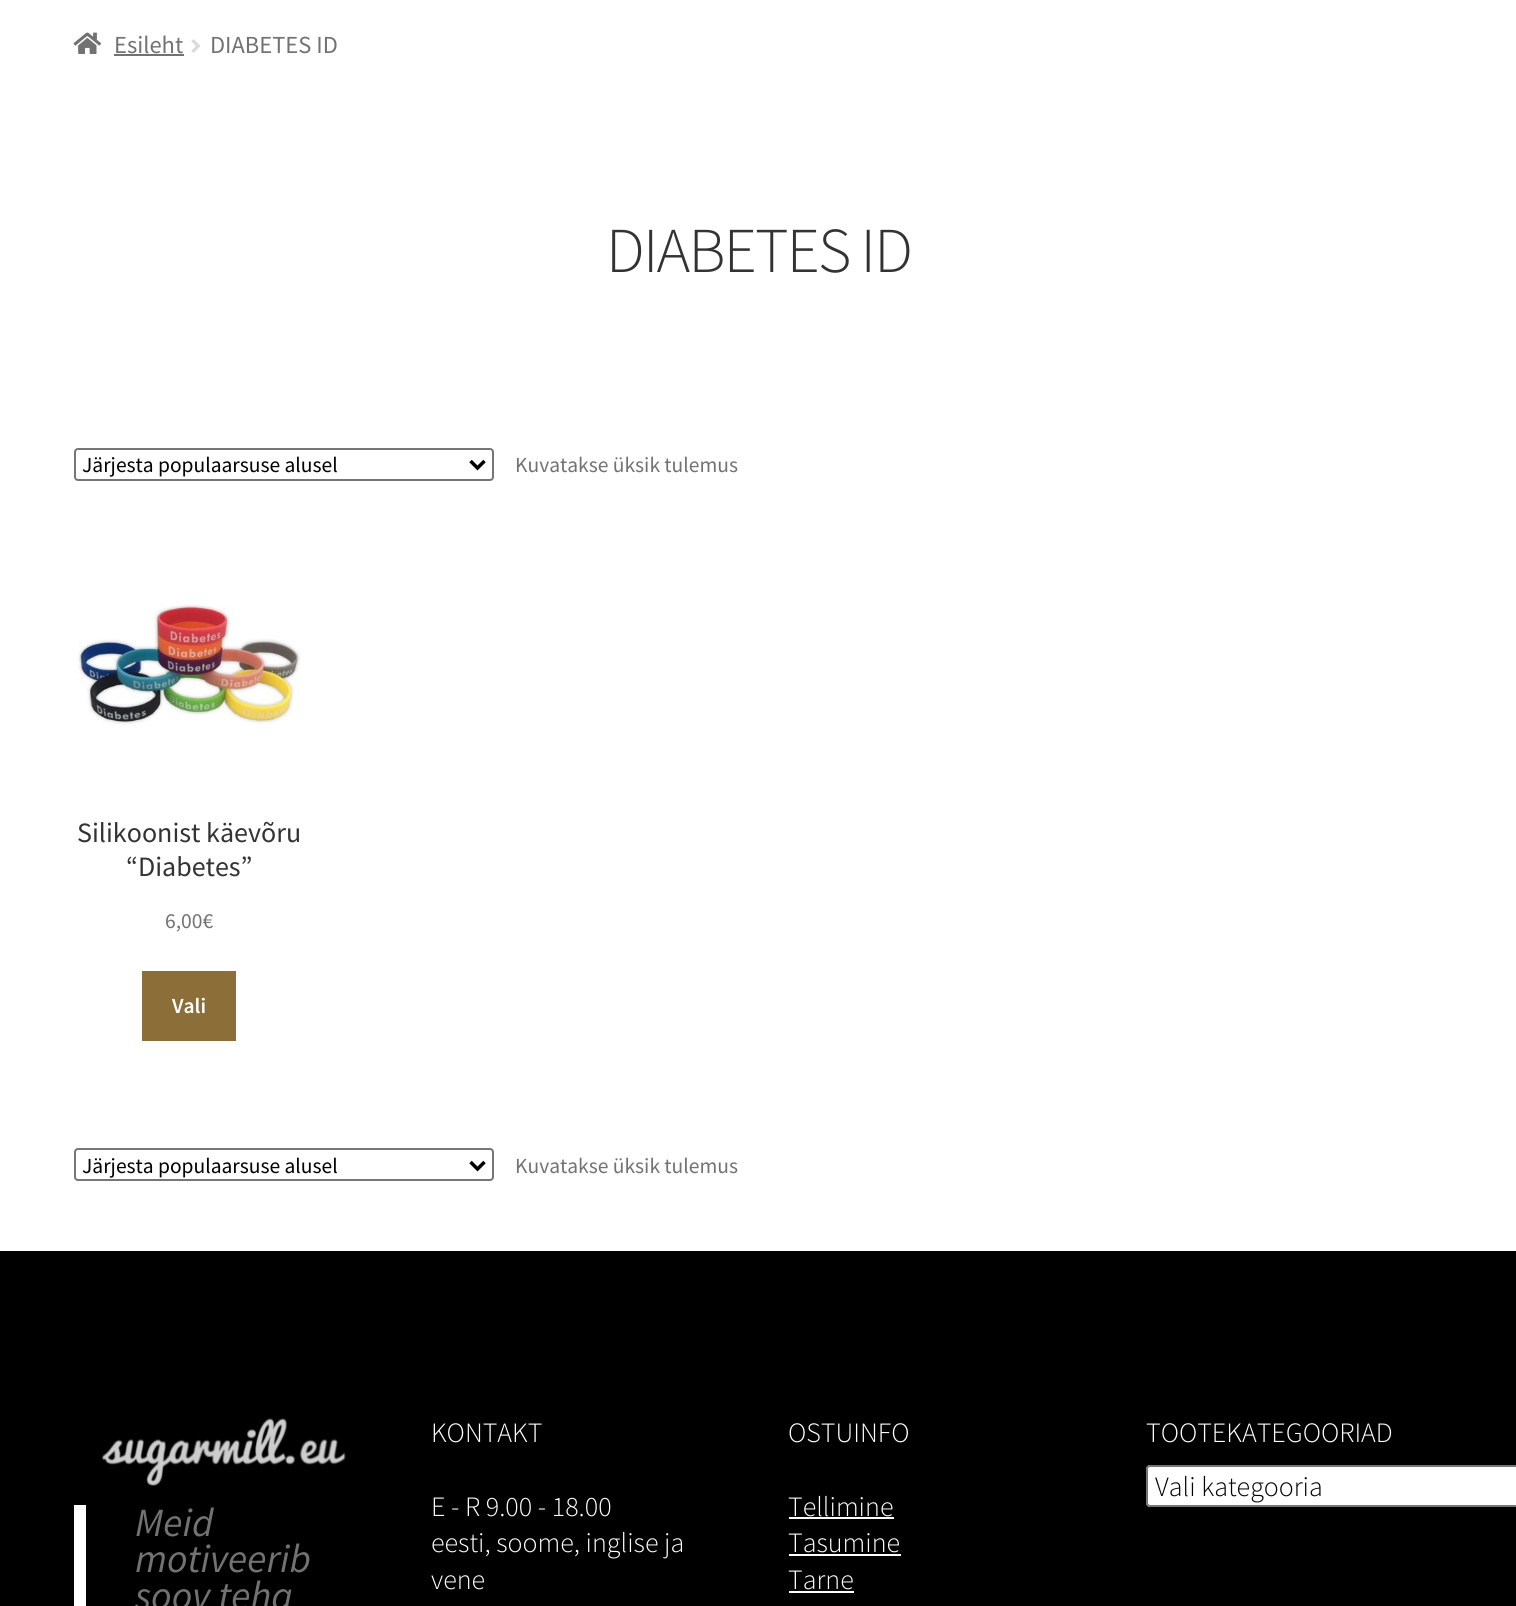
#include <cairo.h>
#include <math.h>
#include <stddef.h>


static void rgb(cairo_t *cr, int r, int g, int b)
{
	cairo_set_source_rgb(cr, r / 255.0, g / 255.0, b / 255.0);
}

static void face(cairo_t *cr, const char *family, double size, int italic, int bold)
{
	cairo_select_font_face(cr, family, italic ? CAIRO_FONT_SLANT_ITALIC : CAIRO_FONT_SLANT_NORMAL,
		bold ? CAIRO_FONT_WEIGHT_BOLD : CAIRO_FONT_WEIGHT_NORMAL);
	cairo_set_font_size(cr, size);
}

static void label(cairo_t *cr, double x, double y, const char *s)
{
	cairo_move_to(cr, x, y);
	cairo_show_text(cr, s);
}

static void tracked(cairo_t *cr, double x, double y, const char *s, double letter, double word)
{
	cairo_move_to(cr, x, y);
	while (*s) {
		char ch[5] = {0};
		int n = 0;
		do ch[n++] = *s++; while ((*s & 0xC0) == 0x80);
		cairo_show_text(cr, ch);
		cairo_rel_move_to(cr, letter + word * (*ch == ' '), 0);
	}
}

static void rect(cairo_t *cr, double x, double y, double w, double h)
{
	cairo_rectangle(cr, x, y, w, h);
	cairo_fill(cr);
}

static void rrect(cairo_t *cr, double x, double y, double w, double h, double r)
{
	cairo_new_sub_path(cr);
	cairo_arc(cr, x + w - r, y + h - r, r, 0, M_PI / 2);
	cairo_arc(cr, x + r, y + h - r, r, M_PI / 2, M_PI);
	cairo_arc(cr, x + r, y + r, r, M_PI, 1.5 * M_PI);
	cairo_arc(cr, x + w - r, y + r, r, 1.5 * M_PI, 2 * M_PI);
	cairo_close_path(cr);
}

static void image(cairo_t *cr, const char *path, double x, double y, double w, double h)
{
	cairo_surface_t *image = cairo_image_surface_create_from_png(path);
	cairo_save(cr);
	cairo_set_source_surface(cr, image, x, y);
	cairo_rectangle(cr, x, y, w, h);
	cairo_fill(cr);
	cairo_restore(cr);
	cairo_surface_destroy(image);
}

static void draw(cairo_t *cr) {
	rgb(cr, 255, 255, 255);
	cairo_paint(cr);
	image(cr, "image0.png", 73, 32, 28, 22);
	face(cr, "Source Sans Pro", 24.5, 0, 0);
	rgb(cr, 114, 114, 114);
	label(cr, 114, 53, "Esileht");
	rect(cr, 114, 54, 70, 2);
	image(cr, "image1.png", 191, 39, 9, 14);
	label(cr, 210, 53, "DIABETES ID");
	face(cr, "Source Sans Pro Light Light", 64, 0, 0);
	rgb(cr, 51, 51, 51);
	tracked(cr, 606, 272, "DIABETES ID", -1.75, 0);
	rrect(cr, 75, 449, 418, 31, 3);
	rgb(cr, 118, 118, 118);
	cairo_stroke(cr);
	cairo_new_path(cr);
	cairo_move_to(cr, 470.5, 461);
	cairo_line_to(cr, 477.5, 468);
	cairo_line_to(cr, 484.5, 461);
	rgb(cr, 0, 0, 0);
	cairo_set_line_width(cr, 3.5);
	cairo_stroke(cr);
	face(cr, "Source Sans Pro", 21.5, 0, 0);
	label(cr, 82, 472, "Järjesta populaarsuse alusel");
	rgb(cr, 114, 114, 114);
	label(cr, 515, 472, "Kuvatakse üksik tulemus");
	image(cr, "image2.png", 74, 604, 227, 121);
	face(cr, "Source Sans Pro", 28, 0, 0);
	rgb(cr, 51, 51, 51);
	label(cr, 77, 842, "Silikoonist käevõru");
	label(cr, 126, 876, "“Diabetes”");
	face(cr, "Source Sans Pro", 21.5, 0, 0);
	rgb(cr, 114, 114, 114);
	label(cr, 165, 928, "6,00€");
	rgb(cr, 140, 111, 56);
	rect(cr, 142, 971, 94, 70);
	face(cr, "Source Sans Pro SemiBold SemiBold", 21.5, 0, 0);
	rgb(cr, 255, 255, 255);
	label(cr, 172, 1013, "Vali");
	rrect(cr, 75, 1149, 418, 31, 3);
	rgb(cr, 118, 118, 118);
	cairo_set_line_width(cr, 2);
	cairo_stroke(cr);
	cairo_new_path(cr);
	cairo_move_to(cr, 470.5, 1162);
	cairo_line_to(cr, 477.5, 1169);
	cairo_line_to(cr, 484.5, 1162);
	rgb(cr, 0, 0, 0);
	cairo_set_line_width(cr, 3.5);
	cairo_stroke(cr);
	face(cr, "Source Sans Pro", 21.5, 0, 0);
	label(cr, 82, 1173, "Järjesta populaarsuse alusel");
	rgb(cr, 114, 114, 114);
	label(cr, 515, 1173, "Kuvatakse üksik tulemus");
	rgb(cr, 0, 0, 0);
	rect(cr, 0, 1251, 1516, 355);
	face(cr, "Source Sans Pro Light Light", 28, 0, 0);
	rgb(cr, 255, 255, 255);
	label(cr, 431, 1442, "KONTAKT");
	label(cr, 431, 1516, "E - R 9.00 - 18.00");
	label(cr, 431, 1552, "eesti, soome, inglise ja");
	label(cr, 431, 1589, "vene");
	label(cr, 788, 1442, "OSTUINFO");
	label(cr, 788, 1516, "Tellimine");
	rect(cr, 789, 1517, 105, 2);
	label(cr, 788, 1552, "Tasumine");
	rect(cr, 789, 1554, 112, 2);
	label(cr, 788, 1589, "Tarne");
	rect(cr, 789, 1591, 65, 2);
	label(cr, 1146, 1442, "TOOTEKATEGOORIAD");
	cairo_new_path(cr);
	cairo_move_to(cr, 1150, 1465);
	cairo_line_to(cr, 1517, 1465);
	cairo_line_to(cr, 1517, 1507);
	cairo_line_to(cr, 1150, 1507);
	cairo_curve_to(cr, 1148, 1507, 1146, 1505, 1146, 1503);
	cairo_line_to(cr, 1146, 1469);
	cairo_curve_to(cr, 1146, 1467, 1148, 1465, 1150, 1465);
	cairo_close_path(cr);
	cairo_fill(cr);
	rrect(cr, 1147, 1466, 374, 40, 3);
	rgb(cr, 118, 118, 118);
	cairo_set_line_width(cr, 2);
	cairo_stroke(cr);
	rgb(cr, 0, 0, 0);
	label(cr, 1155, 1496, "Vali kategooria");
	image(cr, "image3.png", 102, 1418, 244, 68);
	rgb(cr, 255, 255, 255);
	rect(cr, 74, 1505, 12, 101);
	face(cr, "Source Sans Pro", 40, 1, 0);
	rgb(cr, 114, 114, 114);
	label(cr, 135, 1536, "Meid");
	label(cr, 135, 1572, "motiveerib");
	label(cr, 135, 1609, "soov teha");
}

int main(void) {
	cairo_surface_t *surface = cairo_image_surface_create(CAIRO_FORMAT_RGB24, 1516, 1606);
	cairo_t *cr = cairo_create(surface);
	cairo_font_options_t *options = cairo_font_options_create();
	cairo_font_options_set_hint_metrics(options, CAIRO_HINT_METRICS_OFF);
	cairo_font_options_set_hint_style(options, CAIRO_HINT_STYLE_NONE);
	cairo_set_font_options(cr, options);
	cairo_set_miter_limit(cr, 4);
	draw(cr);
	cairo_surface_write_to_png(surface, "render.png");
	cairo_font_options_destroy(options);
	cairo_destroy(cr);
	cairo_surface_destroy(surface);
	return 0;
}
